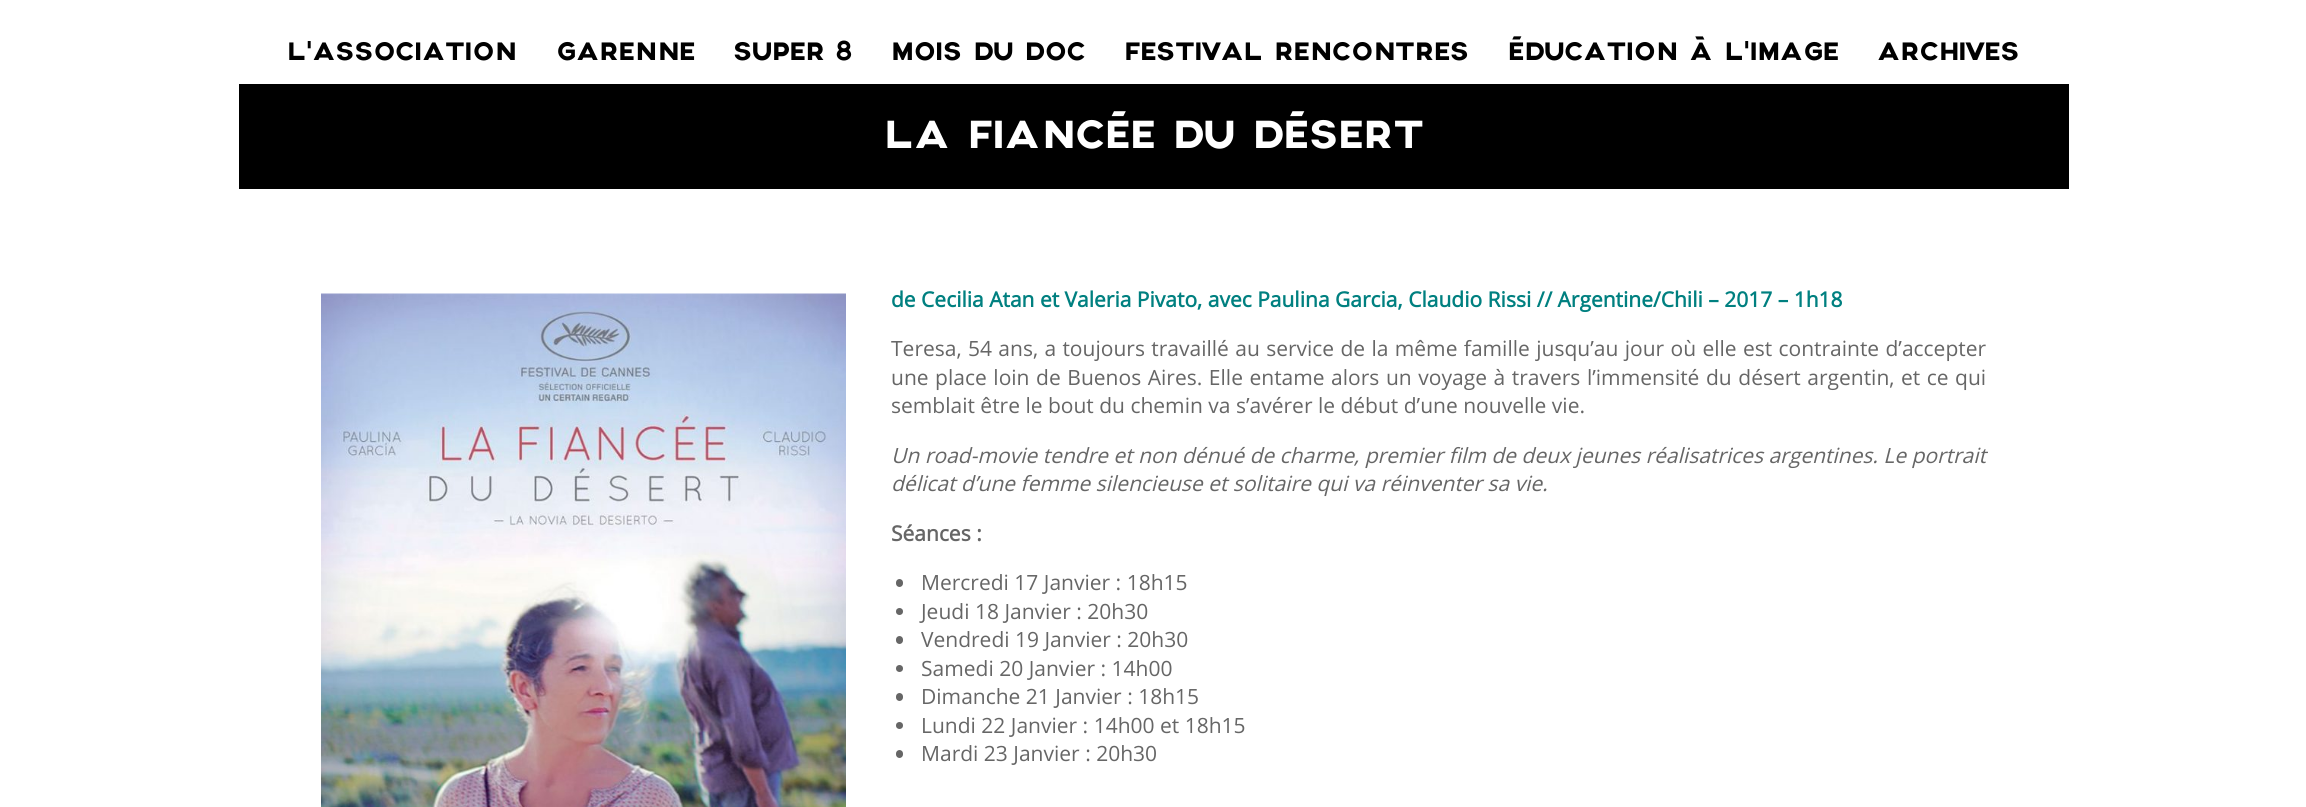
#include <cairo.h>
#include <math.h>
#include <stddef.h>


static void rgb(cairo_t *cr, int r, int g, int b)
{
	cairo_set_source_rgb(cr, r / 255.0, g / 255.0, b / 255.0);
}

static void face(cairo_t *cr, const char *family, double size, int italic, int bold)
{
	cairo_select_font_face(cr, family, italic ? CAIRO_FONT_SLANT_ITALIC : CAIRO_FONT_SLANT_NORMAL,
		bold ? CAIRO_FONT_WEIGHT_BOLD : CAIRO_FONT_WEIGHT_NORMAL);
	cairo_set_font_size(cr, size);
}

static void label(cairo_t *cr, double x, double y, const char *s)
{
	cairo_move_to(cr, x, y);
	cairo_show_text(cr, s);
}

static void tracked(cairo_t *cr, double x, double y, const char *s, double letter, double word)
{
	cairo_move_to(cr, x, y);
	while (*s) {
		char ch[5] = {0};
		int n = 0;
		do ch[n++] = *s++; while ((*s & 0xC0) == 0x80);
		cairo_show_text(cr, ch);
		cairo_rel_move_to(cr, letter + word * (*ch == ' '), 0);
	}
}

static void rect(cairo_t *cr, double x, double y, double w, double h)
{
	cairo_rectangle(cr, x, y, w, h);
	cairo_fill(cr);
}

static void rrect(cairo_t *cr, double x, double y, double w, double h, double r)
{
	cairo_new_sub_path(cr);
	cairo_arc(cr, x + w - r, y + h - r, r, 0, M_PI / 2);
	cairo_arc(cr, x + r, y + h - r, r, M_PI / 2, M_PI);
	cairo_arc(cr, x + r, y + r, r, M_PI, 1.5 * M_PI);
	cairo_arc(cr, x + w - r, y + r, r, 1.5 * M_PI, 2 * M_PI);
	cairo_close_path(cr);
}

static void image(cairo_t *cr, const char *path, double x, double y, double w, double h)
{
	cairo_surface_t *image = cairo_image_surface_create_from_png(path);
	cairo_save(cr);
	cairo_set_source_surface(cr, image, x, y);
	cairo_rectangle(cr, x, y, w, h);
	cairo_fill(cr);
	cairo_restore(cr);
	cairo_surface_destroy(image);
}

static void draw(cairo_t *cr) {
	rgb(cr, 255, 255, 255);
	cairo_paint(cr);
	face(cr, "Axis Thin", 27, 1, 0);
	rgb(cr, 0, 0, 0);
	label(cr, 287, 60, "L’ASSOCIATION");
	label(cr, 556, 60, "GARENNE");
	label(cr, 733, 60, "SUPER 8");
	label(cr, 891, 60, "MOIS DU DOC");
	label(cr, 1124, 60, "FESTIVAL RENCONTRES");
	label(cr, 1508, 60, "ÉDUCATION À L’IMAGE");
	label(cr, 1877, 60, "ARCHIVES");
	rect(cr, 239, 84, 1830, 105);
	face(cr, "Axis Thin", 42, 1, 0);
	rgb(cr, 255, 255, 255);
	label(cr, 884, 148, "LA FIANCÉE DU DÉSERT");
	image(cr, "image0.png", 321, 293, 525, 514);
	face(cr, "Open Sans", 21, 0, 1);
	rgb(cr, 0, 128, 128);
	label(cr, 891, 307, "de Cecilia Atan et Valeria Pivato, avec Paulina Garcia, Claudio Rissi // Argentine/Chili – 2017 – 1h18");
	face(cr, "Open Sans", 21, 0, 0);
	rgb(cr, 102, 102, 102);
	tracked(cr, 891, 356, "Teresa, 54 ans, a toujours travaillé au service de la même famille jusqu’au jour où elle est contrainte d’accepter", 0, 0.9);
	tracked(cr, 891, 385, "une place loin de Buenos Aires. Elle entame alors un voyage à travers l’immensité du désert argentin, et ce qui", 0, 1.1);
	label(cr, 891, 413, "semblait être le bout du chemin va s’avérer le début d’une nouvelle vie.");
	face(cr, "Open Sans", 21, 1, 0);
	label(cr, 891, 463, "Un road-movie tendre et non dénué de charme, premier film de deux jeunes réalisatrices argentines. Le portrait");
	label(cr, 891, 491, "délicat d’une femme silencieuse et solitaire qui va réinventer sa vie.");
	face(cr, "Open Sans", 21, 0, 1);
	label(cr, 891, 541, "Séances :");
	rrect(cr, 896, 579, 7, 8, 3.5);
	cairo_fill(cr);
	face(cr, "Open Sans", 21, 0, 0);
	label(cr, 921, 590, "Mercredi 17 Janvier : 18h15");
	cairo_new_path(cr);
	cairo_arc(cr, 899.5, 611.5, 3.5, 0, 2 * M_PI);
	cairo_fill(cr);
	label(cr, 921, 619, "Jeudi 18 Janvier : 20h30");
	rrect(cr, 896, 636, 7, 8, 3.5);
	cairo_fill(cr);
	label(cr, 921, 647, "Vendredi 19 Janvier : 20h30");
	cairo_new_path(cr);
	cairo_arc(cr, 899.5, 668.5, 3.5, 0, 2 * M_PI);
	cairo_fill(cr);
	label(cr, 921, 676, "Samedi 20 Janvier : 14h00");
	rrect(cr, 896, 693, 7, 8, 3.5);
	cairo_fill(cr);
	label(cr, 921, 704, "Dimanche 21 Janvier : 18h15");
	cairo_new_path(cr);
	cairo_arc(cr, 899.5, 725.5, 3.5, 0, 2 * M_PI);
	cairo_fill(cr);
	label(cr, 921, 733, "Lundi 22 Janvier : 14h00 et 18h15");
	rrect(cr, 896, 750, 7, 8, 3.5);
	cairo_fill(cr);
	label(cr, 921, 761, "Mardi 23 Janvier : 20h30");
}

int main(void) {
	cairo_surface_t *surface = cairo_image_surface_create(CAIRO_FORMAT_RGB24, 2306, 807);
	cairo_t *cr = cairo_create(surface);
	cairo_font_options_t *options = cairo_font_options_create();
	cairo_font_options_set_hint_metrics(options, CAIRO_HINT_METRICS_OFF);
	cairo_font_options_set_hint_style(options, CAIRO_HINT_STYLE_NONE);
	cairo_set_font_options(cr, options);
	cairo_set_miter_limit(cr, 4);
	draw(cr);
	cairo_surface_write_to_png(surface, "render.png");
	cairo_font_options_destroy(options);
	cairo_destroy(cr);
	cairo_surface_destroy(surface);
	return 0;
}
